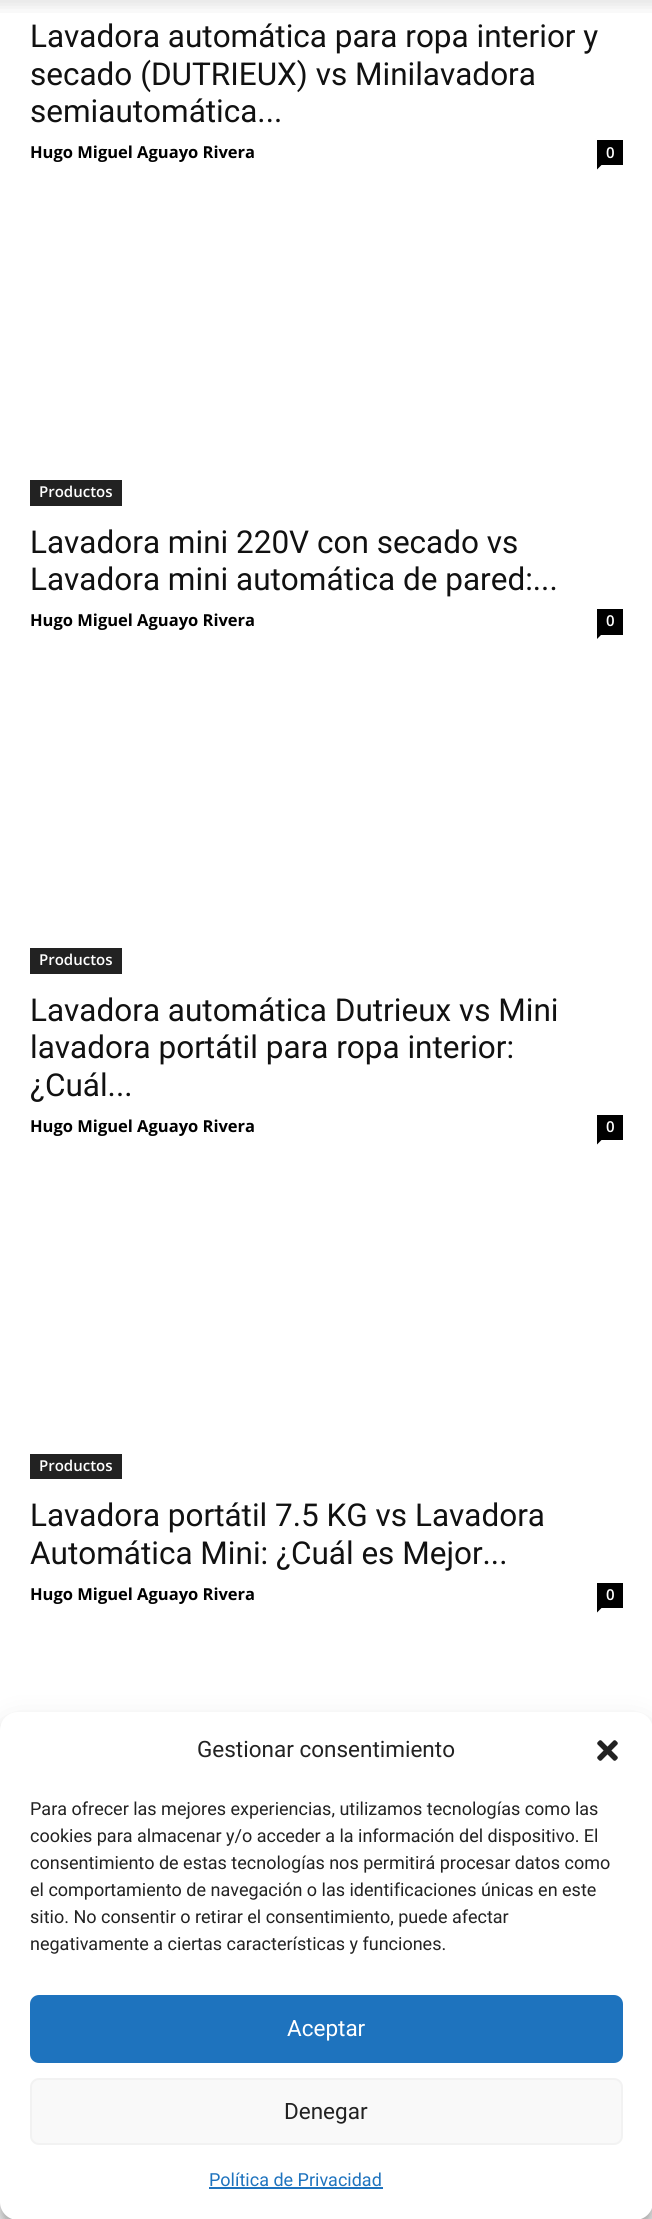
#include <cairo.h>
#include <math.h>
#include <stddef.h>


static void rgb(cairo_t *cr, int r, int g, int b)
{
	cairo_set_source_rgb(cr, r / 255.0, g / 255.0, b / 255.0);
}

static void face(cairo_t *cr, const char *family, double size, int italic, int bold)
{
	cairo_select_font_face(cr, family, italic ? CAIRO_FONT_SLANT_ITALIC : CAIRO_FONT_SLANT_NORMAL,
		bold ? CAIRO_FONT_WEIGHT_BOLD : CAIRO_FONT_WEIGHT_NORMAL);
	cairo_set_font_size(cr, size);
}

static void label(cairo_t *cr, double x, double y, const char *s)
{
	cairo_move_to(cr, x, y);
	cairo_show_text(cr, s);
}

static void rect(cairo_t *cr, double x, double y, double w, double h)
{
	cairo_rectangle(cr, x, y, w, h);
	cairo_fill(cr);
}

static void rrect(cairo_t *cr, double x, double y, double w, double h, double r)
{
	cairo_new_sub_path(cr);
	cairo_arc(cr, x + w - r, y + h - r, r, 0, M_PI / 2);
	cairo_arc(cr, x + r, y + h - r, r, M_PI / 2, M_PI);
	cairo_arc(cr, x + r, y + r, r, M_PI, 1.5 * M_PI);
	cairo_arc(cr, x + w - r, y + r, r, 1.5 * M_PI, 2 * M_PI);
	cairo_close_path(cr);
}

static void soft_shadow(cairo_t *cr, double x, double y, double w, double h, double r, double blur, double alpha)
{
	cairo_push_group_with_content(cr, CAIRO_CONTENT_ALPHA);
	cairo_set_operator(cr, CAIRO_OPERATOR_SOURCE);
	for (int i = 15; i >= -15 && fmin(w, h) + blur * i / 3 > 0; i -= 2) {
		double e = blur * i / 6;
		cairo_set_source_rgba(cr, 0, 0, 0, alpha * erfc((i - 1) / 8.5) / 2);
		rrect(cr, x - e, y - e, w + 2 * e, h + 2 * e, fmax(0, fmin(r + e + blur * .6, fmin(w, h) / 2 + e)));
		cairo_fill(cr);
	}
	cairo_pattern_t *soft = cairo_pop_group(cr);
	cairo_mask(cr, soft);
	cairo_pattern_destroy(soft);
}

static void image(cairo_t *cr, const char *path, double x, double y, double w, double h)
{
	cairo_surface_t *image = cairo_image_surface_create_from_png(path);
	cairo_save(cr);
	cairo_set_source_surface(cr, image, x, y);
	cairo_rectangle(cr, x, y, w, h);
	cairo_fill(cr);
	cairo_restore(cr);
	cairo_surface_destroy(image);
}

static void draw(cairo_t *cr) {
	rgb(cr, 255, 255, 255);
	cairo_paint(cr);
	image(cr, "image0.png", 0, 0, 652, 13);
	face(cr, "Roboto", 31.5, 0, 0);
	rgb(cr, 17, 17, 17);
	label(cr, 30, 47, "Lavadora automática para ropa interior y");
	label(cr, 30, 85, "secado (DUTRIEUX) vs Minilavadora");
	label(cr, 30, 122, "semiautomática...");
	face(cr, "Open Sans", 16.5, 0, 1);
	rgb(cr, 0, 0, 0);
	label(cr, 30, 158, "Hugo Miguel Aguayo Rivera");
	rect(cr, 597, 140, 26, 25);
	face(cr, "Open Sans SemiBold", 15, 0, 0);
	rgb(cr, 255, 255, 255);
	label(cr, 606, 158, "0");
	rgb(cr, 0, 0, 0);
	cairo_new_path(cr);
	cairo_move_to(cr, 597, 165);
	cairo_line_to(cr, 601.5, 165);
	cairo_line_to(cr, 597, 169.5);
	cairo_close_path(cr);
	cairo_fill(cr);
	rgb(cr, 34, 34, 34);
	rect(cr, 30, 480, 92, 26);
	rgb(cr, 255, 255, 255);
	label(cr, 39, 497, "Productos");
	face(cr, "Roboto", 31.5, 0, 0);
	rgb(cr, 17, 17, 17);
	label(cr, 30, 553, "Lavadora mini 220V con secado vs");
	label(cr, 30, 590, "Lavadora mini automática de pared:...");
	face(cr, "Open Sans", 16.5, 0, 1);
	rgb(cr, 0, 0, 0);
	label(cr, 30, 626, "Hugo Miguel Aguayo Rivera");
	rect(cr, 597, 609, 26, 26);
	face(cr, "Open Sans SemiBold", 15, 0, 0);
	rgb(cr, 255, 255, 255);
	label(cr, 606, 626, "0");
	rgb(cr, 0, 0, 0);
	cairo_new_path(cr);
	cairo_move_to(cr, 597, 634.5);
	cairo_line_to(cr, 601.5, 634.5);
	cairo_line_to(cr, 597, 639);
	cairo_close_path(cr);
	cairo_fill(cr);
	rgb(cr, 34, 34, 34);
	rect(cr, 30, 948, 92, 26);
	rgb(cr, 255, 255, 255);
	label(cr, 39, 965, "Productos");
	face(cr, "Roboto", 31.5, 0, 0);
	rgb(cr, 17, 17, 17);
	label(cr, 30, 1021, "Lavadora automática Dutrieux vs Mini");
	label(cr, 30, 1058, "lavadora portátil para ropa interior:");
	label(cr, 30, 1096, "¿Cuál...");
	face(cr, "Open Sans", 16.5, 0, 1);
	rgb(cr, 0, 0, 0);
	label(cr, 30, 1132, "Hugo Miguel Aguayo Rivera");
	rect(cr, 597, 1115, 26, 25);
	face(cr, "Open Sans SemiBold", 15, 0, 0);
	rgb(cr, 255, 255, 255);
	label(cr, 606, 1132, "0");
	rgb(cr, 0, 0, 0);
	cairo_new_path(cr);
	cairo_move_to(cr, 597, 1140);
	cairo_line_to(cr, 601.5, 1140);
	cairo_line_to(cr, 597, 1144.5);
	cairo_close_path(cr);
	cairo_fill(cr);
	rgb(cr, 34, 34, 34);
	rect(cr, 30, 1454, 92, 25);
	rgb(cr, 255, 255, 255);
	label(cr, 39, 1471, "Productos");
	face(cr, "Roboto", 31.5, 0, 0);
	rgb(cr, 17, 17, 17);
	label(cr, 30, 1526, "Lavadora portátil 7.5 KG vs Lavadora");
	label(cr, 30, 1564, "Automática Mini: ¿Cuál es Mejor...");
	face(cr, "Open Sans", 16.5, 0, 1);
	rgb(cr, 0, 0, 0);
	label(cr, 30, 1600, "Hugo Miguel Aguayo Rivera");
	rect(cr, 597, 1583, 26, 25);
	face(cr, "Open Sans SemiBold", 15, 0, 0);
	rgb(cr, 255, 255, 255);
	label(cr, 606, 1600, "0");
	rgb(cr, 0, 0, 0);
	cairo_new_path(cr);
	cairo_move_to(cr, 597, 1608);
	cairo_line_to(cr, 601.5, 1608);
	cairo_line_to(cr, 597, 1612.5);
	cairo_close_path(cr);
	cairo_fill(cr);
	rgb(cr, 0, 0, 0);
	soft_shadow(cr, 0, 1721, 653, 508, 18, 4.5, 0.23);
	soft_shadow(cr, 0, 1727, 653, 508, 18, 15, 0.19);
	rgb(cr, 255, 255, 255);
	rrect(cr, 0, 1712, 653, 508, 18);
	cairo_fill(cr);
	face(cr, "Roboto", 22.5, 0, 0);
	rgb(cr, 34, 34, 34);
	label(cr, 197, 1757, "Gestionar consentimiento");
	image(cr, "image1.png", 597, 1740, 21, 21);
	face(cr, "Roboto", 18, 0, 0);
	label(cr, 30, 1815, "Para ofrecer las mejores experiencias, utilizamos tecnologías como las");
	label(cr, 30, 1842, "cookies para almacenar y/o acceder a la información del dispositivo. El");
	label(cr, 30, 1869, "consentimiento de estas tecnologías nos permitirá procesar datos como");
	label(cr, 30, 1896, "el comportamiento de navegación o las identificaciones únicas en este");
	label(cr, 30, 1923, "sitio. No consentir o retirar el consentimiento, puede afectar");
	label(cr, 30, 1950, "negativamente a ciertas características y funciones.");
	rgb(cr, 30, 115, 190);
	rrect(cr, 31, 1996, 591, 66, 8);
	cairo_fill_preserve(cr);
	cairo_stroke(cr);
	face(cr, "Roboto", 22.5, 0, 0);
	rgb(cr, 255, 255, 255);
	label(cr, 287, 2036, "Aceptar");
	rgb(cr, 249, 249, 249);
	rrect(cr, 31, 2079, 591, 65, 8);
	cairo_fill_preserve(cr);
	rgb(cr, 242, 242, 242);
	cairo_stroke(cr);
	rgb(cr, 34, 34, 34);
	label(cr, 284, 2119, "Denegar");
	face(cr, "Roboto", 18, 0, 0);
	rgb(cr, 30, 115, 190);
	label(cr, 209, 2186, "Política de Privacidad");
	rect(cr, 209, 2187, 174, 2);
}

int main(void) {
	cairo_surface_t *surface = cairo_image_surface_create(CAIRO_FORMAT_RGB24, 652, 2219);
	cairo_t *cr = cairo_create(surface);
	cairo_font_options_t *options = cairo_font_options_create();
	cairo_font_options_set_hint_metrics(options, CAIRO_HINT_METRICS_OFF);
	cairo_font_options_set_hint_style(options, CAIRO_HINT_STYLE_NONE);
	cairo_set_font_options(cr, options);
	cairo_set_miter_limit(cr, 4);
	draw(cr);
	cairo_surface_write_to_png(surface, "render.png");
	cairo_font_options_destroy(options);
	cairo_destroy(cr);
	cairo_surface_destroy(surface);
	return 0;
}
